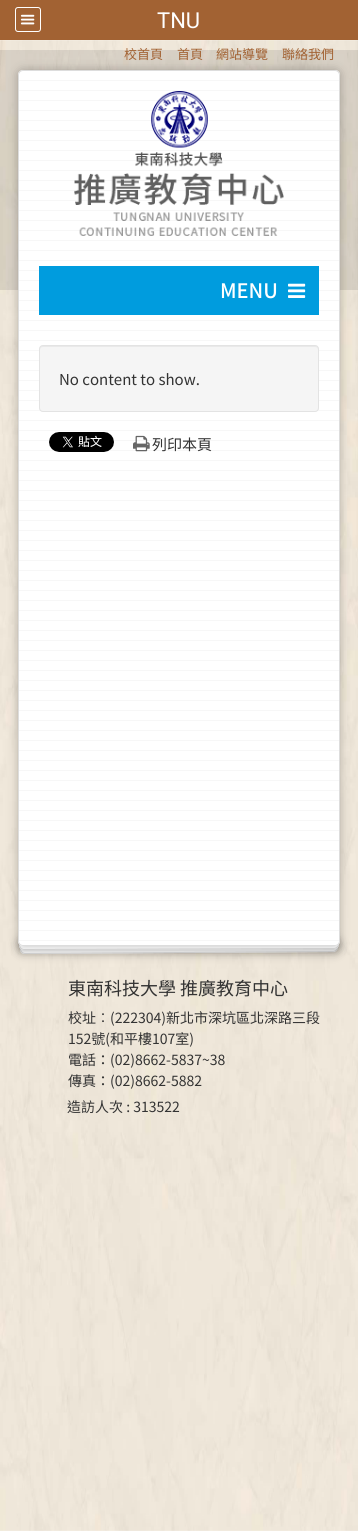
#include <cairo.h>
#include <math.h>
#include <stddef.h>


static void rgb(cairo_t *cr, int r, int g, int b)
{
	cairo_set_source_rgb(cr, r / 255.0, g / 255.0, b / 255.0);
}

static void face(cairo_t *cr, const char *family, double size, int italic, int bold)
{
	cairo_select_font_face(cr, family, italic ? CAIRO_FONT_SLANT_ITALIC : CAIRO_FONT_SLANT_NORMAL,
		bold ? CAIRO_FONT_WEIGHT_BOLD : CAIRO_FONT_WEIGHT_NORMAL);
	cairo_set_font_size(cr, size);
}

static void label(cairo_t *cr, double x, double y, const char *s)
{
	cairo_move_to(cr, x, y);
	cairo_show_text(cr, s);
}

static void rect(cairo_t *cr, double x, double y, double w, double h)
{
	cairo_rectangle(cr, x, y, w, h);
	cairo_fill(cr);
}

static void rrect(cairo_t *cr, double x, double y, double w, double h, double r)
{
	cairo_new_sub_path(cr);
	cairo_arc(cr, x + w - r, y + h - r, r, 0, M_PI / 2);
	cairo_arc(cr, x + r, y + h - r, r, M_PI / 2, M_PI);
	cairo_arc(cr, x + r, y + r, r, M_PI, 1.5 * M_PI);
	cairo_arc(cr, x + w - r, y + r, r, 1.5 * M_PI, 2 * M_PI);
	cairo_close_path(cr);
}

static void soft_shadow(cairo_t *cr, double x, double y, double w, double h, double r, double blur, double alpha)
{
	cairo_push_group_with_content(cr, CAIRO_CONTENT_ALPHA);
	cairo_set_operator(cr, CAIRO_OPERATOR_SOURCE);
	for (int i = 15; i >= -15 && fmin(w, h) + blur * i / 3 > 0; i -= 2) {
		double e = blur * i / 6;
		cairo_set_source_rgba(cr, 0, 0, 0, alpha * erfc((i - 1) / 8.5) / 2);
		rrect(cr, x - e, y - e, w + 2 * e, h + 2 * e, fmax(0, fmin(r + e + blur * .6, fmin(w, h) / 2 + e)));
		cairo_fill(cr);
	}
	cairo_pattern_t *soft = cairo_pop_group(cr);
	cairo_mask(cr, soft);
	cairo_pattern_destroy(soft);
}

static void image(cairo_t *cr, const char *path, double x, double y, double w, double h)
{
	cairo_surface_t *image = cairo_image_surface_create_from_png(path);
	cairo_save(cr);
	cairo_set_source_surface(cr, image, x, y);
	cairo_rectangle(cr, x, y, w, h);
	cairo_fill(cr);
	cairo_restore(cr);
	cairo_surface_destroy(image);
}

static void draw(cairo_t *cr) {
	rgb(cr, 255, 255, 255);
	cairo_paint(cr);
	image(cr, "image0.png", 0, 40, 358, 1491);
	cairo_set_source_rgba(cr, 0, 0, 0, 0.1);
	rect(cr, 0, 50, 358, 240);
	rgb(cr, 162, 98, 51);
	rect(cr, 0, 0, 358, 40);
	rrect(cr, 15.5, 7.5, 25, 24, 2.5);
	rgb(cr, 255, 255, 255);
	cairo_set_line_width(cr, 1);
	cairo_stroke(cr);
	image(cr, "image1.png", 20, 14, 15, 11);
	face(cr, "Roboto", 22, 0, 0);
	label(cr, 157, 28, "TNU");
	rgb(cr, 0, 0, 0);
	soft_shadow(cr, 20, 943, 318, 10, 5, 5, 0.25);
	rgb(cr, 255, 255, 255);
	cairo_new_path(cr);
	cairo_move_to(cr, 20, 944);
	cairo_line_to(cr, 338, 942);
	cairo_line_to(cr, 338, 947);
	cairo_curve_to(cr, 338, 949, 336, 952, 333, 952);
	cairo_line_to(cr, 25, 954);
	cairo_curve_to(cr, 22, 954, 20, 952, 20, 949);
	cairo_close_path(cr);
	cairo_fill(cr);
	rgb(cr, 221, 221, 221);
	cairo_set_fill_rule(cr, CAIRO_FILL_RULE_EVEN_ODD);
	cairo_new_path(cr);
	cairo_move_to(cr, 20, 944);
	cairo_line_to(cr, 338, 942);
	cairo_line_to(cr, 338, 947);
	cairo_curve_to(cr, 338, 949, 336, 952, 333, 952);
	cairo_line_to(cr, 25, 954);
	cairo_curve_to(cr, 22, 954, 20, 952, 20, 949);
	cairo_close_path(cr);
	cairo_move_to(cr, 21, 944);
	cairo_line_to(cr, 337, 942);
	cairo_line_to(cr, 337, 947);
	cairo_curve_to(cr, 337, 949, 335, 951, 333, 951);
	cairo_line_to(cr, 25, 953);
	cairo_curve_to(cr, 23, 953, 21, 951, 21, 949);
	cairo_close_path(cr);
	cairo_fill(cr);
	rgb(cr, 0, 0, 0);
	soft_shadow(cr, 19, 940, 320, 10, 5, 5, 0.25);
	rgb(cr, 255, 255, 255);
	cairo_set_fill_rule(cr, CAIRO_FILL_RULE_WINDING);
	cairo_new_path(cr);
	cairo_move_to(cr, 19, 940);
	cairo_line_to(cr, 339, 939);
	cairo_line_to(cr, 339, 944);
	cairo_curve_to(cr, 339, 947, 337, 949, 334, 949);
	cairo_line_to(cr, 24, 950);
	cairo_curve_to(cr, 21, 950, 19, 948, 19, 945);
	cairo_close_path(cr);
	cairo_fill(cr);
	rgb(cr, 221, 221, 221);
	cairo_set_fill_rule(cr, CAIRO_FILL_RULE_EVEN_ODD);
	cairo_new_path(cr);
	cairo_move_to(cr, 19, 940);
	cairo_line_to(cr, 339, 939);
	cairo_line_to(cr, 339, 944);
	cairo_curve_to(cr, 339, 947, 337, 949, 334, 949);
	cairo_line_to(cr, 24, 950);
	cairo_curve_to(cr, 21, 950, 19, 948, 19, 945);
	cairo_close_path(cr);
	cairo_move_to(cr, 20, 940);
	cairo_line_to(cr, 338, 939);
	cairo_line_to(cr, 338, 944);
	cairo_curve_to(cr, 338, 946, 336, 948, 334, 948);
	cairo_line_to(cr, 24, 949);
	cairo_curve_to(cr, 22, 949, 20, 947, 20, 945);
	cairo_close_path(cr);
	cairo_fill(cr);
	rgb(cr, 0, 0, 0);
	soft_shadow(cr, 18, 70, 322, 876, 5, 5, 0.25);
	rgb(cr, 255, 255, 255);
	rrect(cr, 18, 70, 322, 876, 5);
	cairo_fill(cr);
	image(cr, "image2.png", 19, 70, 320, 871);
	rrect(cr, 18.5, 70.5, 321, 875, 4.5);
	rgb(cr, 221, 221, 221);
	cairo_stroke(cr);
	face(cr, "Noto Sans TC", 13, 0, 0);
	rgb(cr, 162, 98, 51);
	label(cr, 124, 59, "校首頁");
	label(cr, 177, 59, "首頁");
	label(cr, 216, 59, "網站導覽");
	label(cr, 282, 59, "聯絡我們");
	image(cr, "image3.png", 74, 91, 210, 145);
	rgb(cr, 0, 156, 222);
	rect(cr, 39, 266, 280, 49);
	face(cr, "Noto Sans TC Medium", 20, 0, 0);
	rgb(cr, 255, 255, 255);
	label(cr, 220, 298, "MENU");
	image(cr, "image4.png", 288, 283, 18, 15);
	rgb(cr, 245, 245, 245);
	rrect(cr, 39, 345, 280, 67, 4);
	cairo_fill(cr);
	rgb(cr, 233, 233, 233);
	cairo_set_fill_rule(cr, CAIRO_FILL_RULE_WINDING);
	cairo_new_path(cr);
	cairo_move_to(cr, 43, 347);
	cairo_line_to(cr, 315, 347);
	cairo_curve_to(cr, 317, 347, 318, 348, 318, 350);
	cairo_line_to(cr, 318, 349);
	cairo_curve_to(cr, 318, 347, 317, 346, 315, 346);
	cairo_line_to(cr, 43, 346);
	cairo_curve_to(cr, 41, 346, 40, 347, 40, 349);
	cairo_line_to(cr, 40, 350);
	cairo_curve_to(cr, 40, 348, 41, 347, 43, 347);
	cairo_close_path(cr);
	cairo_fill(cr);
	rrect(cr, 39.5, 345.5, 279, 66, 3.5);
	rgb(cr, 227, 227, 227);
	cairo_stroke(cr);
	face(cr, "Noto Sans TC", 15, 0, 0);
	rgb(cr, 51, 51, 51);
	label(cr, 59, 385, "No content to show.");
	image(cr, "image5.png", 49, 432, 65, 20);
	image(cr, "image6.png", 133, 435, 17, 17);
	label(cr, 152, 450, "列印本頁");
	face(cr, "Noto Sans TC", 18, 0, 0);
	label(cr, 68, 995, "東南科技大學 推廣教育中心");
	face(cr, "Noto Sans TC", 14, 0, 0);
	label(cr, 68, 1023, "校址︰(222304)新北市深坑區北深路三段");
	label(cr, 68, 1044, "152號(和平樓107室)");
	label(cr, 68, 1065, "電話：(02)8662-5837~38");
	label(cr, 68, 1086, "傳真：(02)8662-5882");
	label(cr, 67, 1112, "造訪人次 : 313522");
}

int main(void) {
	cairo_surface_t *surface = cairo_image_surface_create(CAIRO_FORMAT_RGB24, 358, 1531);
	cairo_t *cr = cairo_create(surface);
	cairo_font_options_t *options = cairo_font_options_create();
	cairo_font_options_set_hint_metrics(options, CAIRO_HINT_METRICS_OFF);
	cairo_font_options_set_hint_style(options, CAIRO_HINT_STYLE_NONE);
	cairo_set_font_options(cr, options);
	cairo_set_miter_limit(cr, 4);
	draw(cr);
	cairo_surface_write_to_png(surface, "render.png");
	cairo_font_options_destroy(options);
	cairo_destroy(cr);
	cairo_surface_destroy(surface);
	return 0;
}
